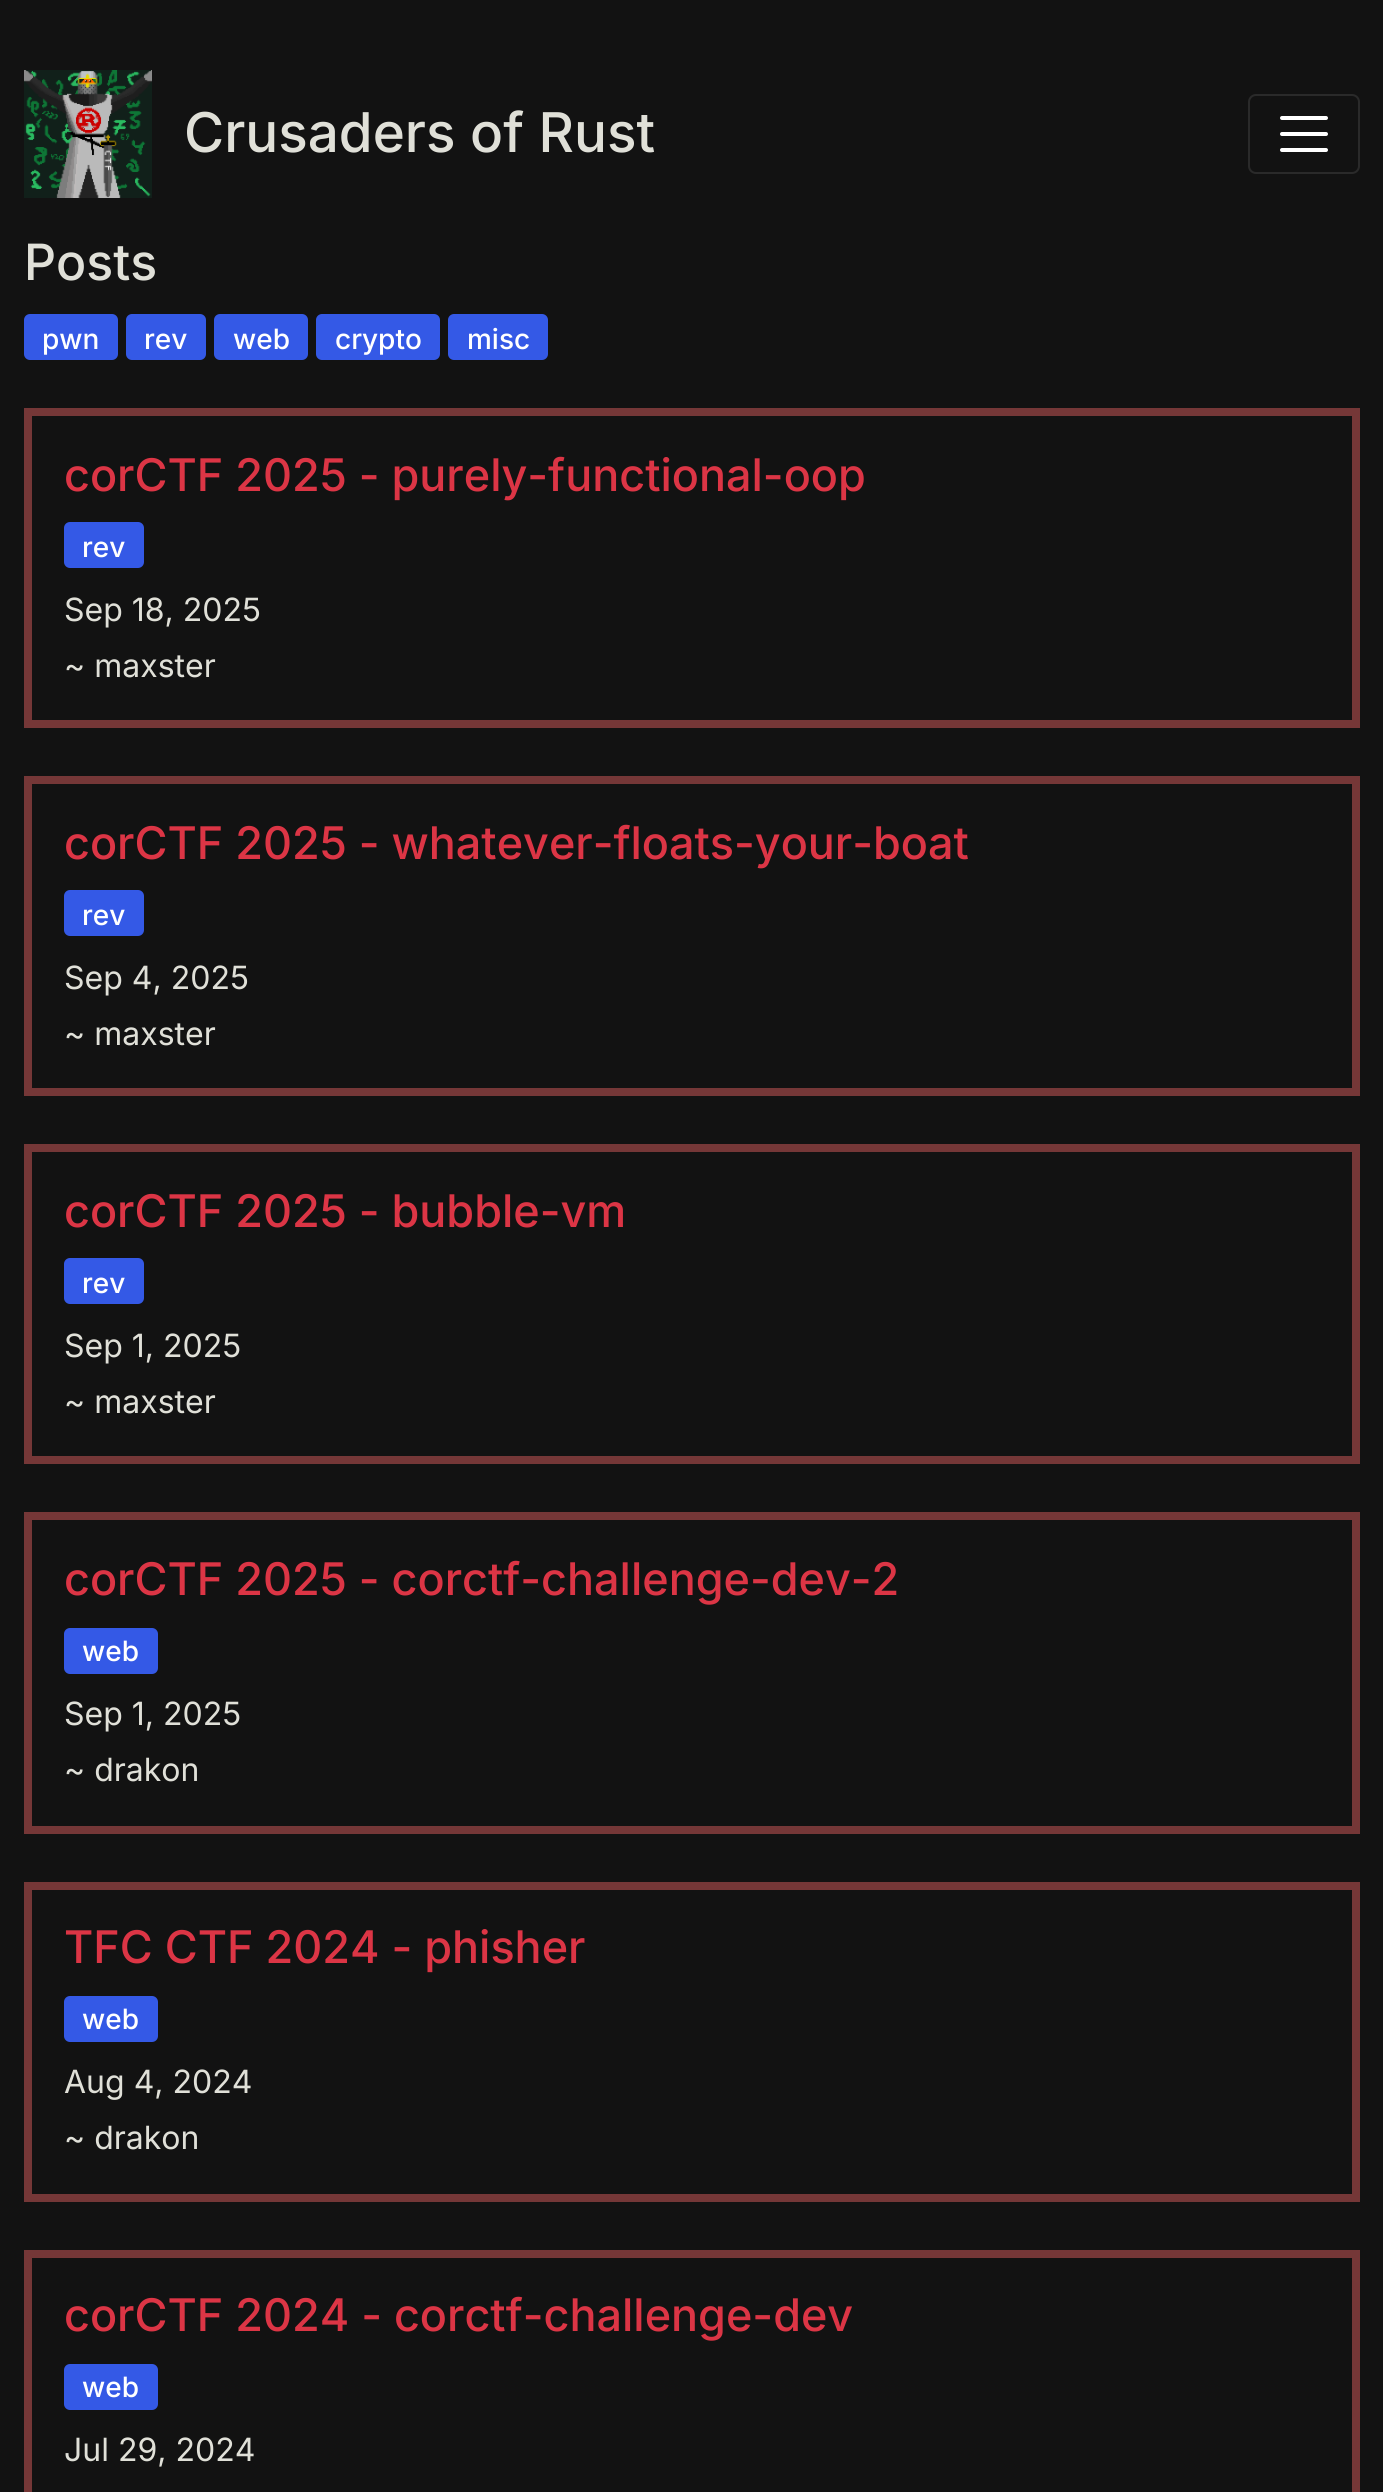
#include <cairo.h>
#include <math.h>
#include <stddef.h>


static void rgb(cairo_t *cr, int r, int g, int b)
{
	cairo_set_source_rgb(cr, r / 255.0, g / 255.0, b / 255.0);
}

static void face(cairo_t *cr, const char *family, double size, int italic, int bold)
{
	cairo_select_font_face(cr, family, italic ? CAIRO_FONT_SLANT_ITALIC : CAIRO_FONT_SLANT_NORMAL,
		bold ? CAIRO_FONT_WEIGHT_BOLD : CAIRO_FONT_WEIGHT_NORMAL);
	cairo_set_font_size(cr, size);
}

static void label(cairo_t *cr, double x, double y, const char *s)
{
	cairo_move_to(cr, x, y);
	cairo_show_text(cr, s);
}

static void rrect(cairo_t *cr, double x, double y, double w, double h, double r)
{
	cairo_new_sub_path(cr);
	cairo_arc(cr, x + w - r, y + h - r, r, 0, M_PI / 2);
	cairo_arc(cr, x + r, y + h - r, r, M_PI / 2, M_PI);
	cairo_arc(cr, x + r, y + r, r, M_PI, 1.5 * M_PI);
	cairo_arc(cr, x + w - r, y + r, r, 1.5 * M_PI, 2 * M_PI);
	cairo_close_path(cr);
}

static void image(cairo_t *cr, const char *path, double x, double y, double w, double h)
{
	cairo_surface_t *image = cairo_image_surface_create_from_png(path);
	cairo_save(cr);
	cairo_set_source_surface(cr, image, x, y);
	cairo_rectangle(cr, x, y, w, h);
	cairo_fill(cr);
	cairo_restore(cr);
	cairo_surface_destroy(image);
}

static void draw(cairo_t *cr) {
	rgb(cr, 18, 18, 18);
	cairo_paint(cr);
	image(cr, "image0.png", 24, 70, 128, 128);
	face(cr, "Inter Medium", 54.75, 0, 0);
	rgb(cr, 224, 224, 216);
	label(cr, 184, 152, "Crusaders of Rust");
	rrect(cr, 1249, 95, 110, 78, 7);
	rgb(cr, 42, 42, 42);
	cairo_stroke(cr);
	cairo_new_path(cr);
	cairo_move_to(cr, 1282, 118);
	cairo_line_to(cr, 1326, 118);
	cairo_move_to(cr, 1282, 134);
	cairo_line_to(cr, 1326, 134);
	cairo_move_to(cr, 1282, 150);
	cairo_line_to(cr, 1326, 150);
	rgb(cr, 255, 255, 255);
	cairo_set_line_width(cr, 4);
	cairo_set_line_cap(cr, CAIRO_LINE_CAP_ROUND);
	cairo_stroke(cr);
	face(cr, "Inter Medium", 50, 0, 0);
	rgb(cr, 224, 224, 216);
	label(cr, 24, 280, "Posts");
	rgb(cr, 52, 89, 230);
	rrect(cr, 25, 315, 92, 44, 5);
	cairo_fill_preserve(cr);
	cairo_set_line_width(cr, 2);
	cairo_set_line_cap(cr, CAIRO_LINE_CAP_BUTT);
	cairo_stroke(cr);
	face(cr, "Inter Medium", 28, 0, 0);
	rgb(cr, 255, 255, 255);
	label(cr, 42, 349, "pwn");
	rgb(cr, 52, 89, 230);
	rrect(cr, 127, 315, 78, 44, 5);
	cairo_fill_preserve(cr);
	cairo_stroke(cr);
	rgb(cr, 255, 255, 255);
	label(cr, 144, 349, "rev");
	rgb(cr, 52, 89, 230);
	rrect(cr, 215, 315, 92, 44, 5);
	cairo_fill_preserve(cr);
	cairo_stroke(cr);
	rgb(cr, 255, 255, 255);
	label(cr, 233, 349, "web");
	rgb(cr, 52, 89, 230);
	rrect(cr, 317, 315, 122, 44, 5);
	cairo_fill_preserve(cr);
	cairo_stroke(cr);
	rgb(cr, 255, 255, 255);
	label(cr, 335, 349, "crypto");
	rgb(cr, 52, 89, 230);
	rrect(cr, 449, 315, 98, 44, 5);
	cairo_fill_preserve(cr);
	cairo_stroke(cr);
	rgb(cr, 255, 255, 255);
	label(cr, 467, 349, "misc");
	cairo_rectangle(cr, 28, 412, 1328, 312);
	rgb(cr, 117, 55, 55);
	cairo_set_line_width(cr, 8);
	cairo_stroke(cr);
	face(cr, "Inter Medium", 44.95, 0, 0);
	rgb(cr, 220, 53, 69);
	label(cr, 64, 491, "corCTF 2025 - purely-functional-oop");
	rgb(cr, 52, 89, 230);
	rrect(cr, 65, 523, 78, 44, 5);
	cairo_fill_preserve(cr);
	cairo_set_line_width(cr, 2);
	cairo_stroke(cr);
	face(cr, "Inter Medium", 28, 0, 0);
	rgb(cr, 255, 255, 255);
	label(cr, 82, 557, "rev");
	face(cr, "Inter", 32, 0, 0);
	rgb(cr, 224, 224, 216);
	label(cr, 64, 621, "Sep 18, 2025");
	label(cr, 64, 677, "~ maxster");
	cairo_rectangle(cr, 28, 780, 1328, 312);
	rgb(cr, 117, 55, 55);
	cairo_set_line_width(cr, 8);
	cairo_stroke(cr);
	face(cr, "Inter Medium", 44.95, 0, 0);
	rgb(cr, 220, 53, 69);
	label(cr, 64, 859, "corCTF 2025 - whatever-floats-your-boat");
	rgb(cr, 52, 89, 230);
	rrect(cr, 65, 891, 78, 44, 5);
	cairo_fill_preserve(cr);
	cairo_set_line_width(cr, 2);
	cairo_stroke(cr);
	face(cr, "Inter Medium", 28, 0, 0);
	rgb(cr, 255, 255, 255);
	label(cr, 82, 925, "rev");
	face(cr, "Inter", 32, 0, 0);
	rgb(cr, 224, 224, 216);
	label(cr, 64, 989, "Sep 4, 2025");
	label(cr, 64, 1045, "~ maxster");
	cairo_rectangle(cr, 28, 1148, 1328, 312);
	rgb(cr, 117, 55, 55);
	cairo_set_line_width(cr, 8);
	cairo_stroke(cr);
	face(cr, "Inter Medium", 44.95, 0, 0);
	rgb(cr, 220, 53, 69);
	label(cr, 64, 1227, "corCTF 2025 - bubble-vm");
	rgb(cr, 52, 89, 230);
	rrect(cr, 65, 1259, 78, 44, 5);
	cairo_fill_preserve(cr);
	cairo_set_line_width(cr, 2);
	cairo_stroke(cr);
	face(cr, "Inter Medium", 28, 0, 0);
	rgb(cr, 255, 255, 255);
	label(cr, 82, 1293, "rev");
	face(cr, "Inter", 32, 0, 0);
	rgb(cr, 224, 224, 216);
	label(cr, 64, 1357, "Sep 1, 2025");
	label(cr, 64, 1413, "~ maxster");
	cairo_rectangle(cr, 28, 1516, 1328, 314);
	rgb(cr, 117, 55, 55);
	cairo_set_line_width(cr, 8);
	cairo_stroke(cr);
	face(cr, "Inter Medium", 44.95, 0, 0);
	rgb(cr, 220, 53, 69);
	label(cr, 64, 1595, "corCTF 2025 - corctf-challenge-dev-2");
	rgb(cr, 52, 89, 230);
	rrect(cr, 65, 1629, 92, 44, 5);
	cairo_fill_preserve(cr);
	cairo_set_line_width(cr, 2);
	cairo_stroke(cr);
	face(cr, "Inter Medium", 28, 0, 0);
	rgb(cr, 255, 255, 255);
	label(cr, 82, 1661, "web");
	face(cr, "Inter", 32, 0, 0);
	rgb(cr, 224, 224, 216);
	label(cr, 64, 1725, "Sep 1, 2025");
	label(cr, 64, 1781, "~ drakon");
	cairo_rectangle(cr, 28, 1886, 1328, 312);
	rgb(cr, 117, 55, 55);
	cairo_set_line_width(cr, 8);
	cairo_stroke(cr);
	face(cr, "Inter Medium", 44.95, 0, 0);
	rgb(cr, 220, 53, 69);
	label(cr, 64, 1963, "TFC CTF 2024 - phisher");
	rgb(cr, 52, 89, 230);
	rrect(cr, 65, 1997, 92, 44, 5);
	cairo_fill_preserve(cr);
	cairo_set_line_width(cr, 2);
	cairo_stroke(cr);
	face(cr, "Inter Medium", 28, 0, 0);
	rgb(cr, 255, 255, 255);
	label(cr, 82, 2029, "web");
	face(cr, "Inter", 32, 0, 0);
	rgb(cr, 224, 224, 216);
	label(cr, 64, 2093, "Aug 4, 2024");
	label(cr, 64, 2149, "~ drakon");
	cairo_rectangle(cr, 28, 2254, 1328, 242);
	rgb(cr, 117, 55, 55);
	cairo_set_line_width(cr, 8);
	cairo_stroke(cr);
	face(cr, "Inter Medium", 44.95, 0, 0);
	rgb(cr, 220, 53, 69);
	label(cr, 64, 2331, "corCTF 2024 - corctf-challenge-dev");
	rgb(cr, 52, 89, 230);
	rrect(cr, 65, 2365, 92, 44, 5);
	cairo_fill_preserve(cr);
	cairo_set_line_width(cr, 2);
	cairo_stroke(cr);
	face(cr, "Inter Medium", 28, 0, 0);
	rgb(cr, 255, 255, 255);
	label(cr, 82, 2397, "web");
	face(cr, "Inter", 32, 0, 0);
	rgb(cr, 224, 224, 216);
	label(cr, 64, 2461, "Jul 29, 2024");
}

int main(void) {
	cairo_surface_t *surface = cairo_image_surface_create(CAIRO_FORMAT_RGB24, 1383, 2492);
	cairo_t *cr = cairo_create(surface);
	cairo_font_options_t *options = cairo_font_options_create();
	cairo_font_options_set_hint_metrics(options, CAIRO_HINT_METRICS_OFF);
	cairo_font_options_set_hint_style(options, CAIRO_HINT_STYLE_NONE);
	cairo_set_font_options(cr, options);
	cairo_set_miter_limit(cr, 4);
	draw(cr);
	cairo_surface_write_to_png(surface, "render.png");
	cairo_font_options_destroy(options);
	cairo_destroy(cr);
	cairo_surface_destroy(surface);
	return 0;
}
